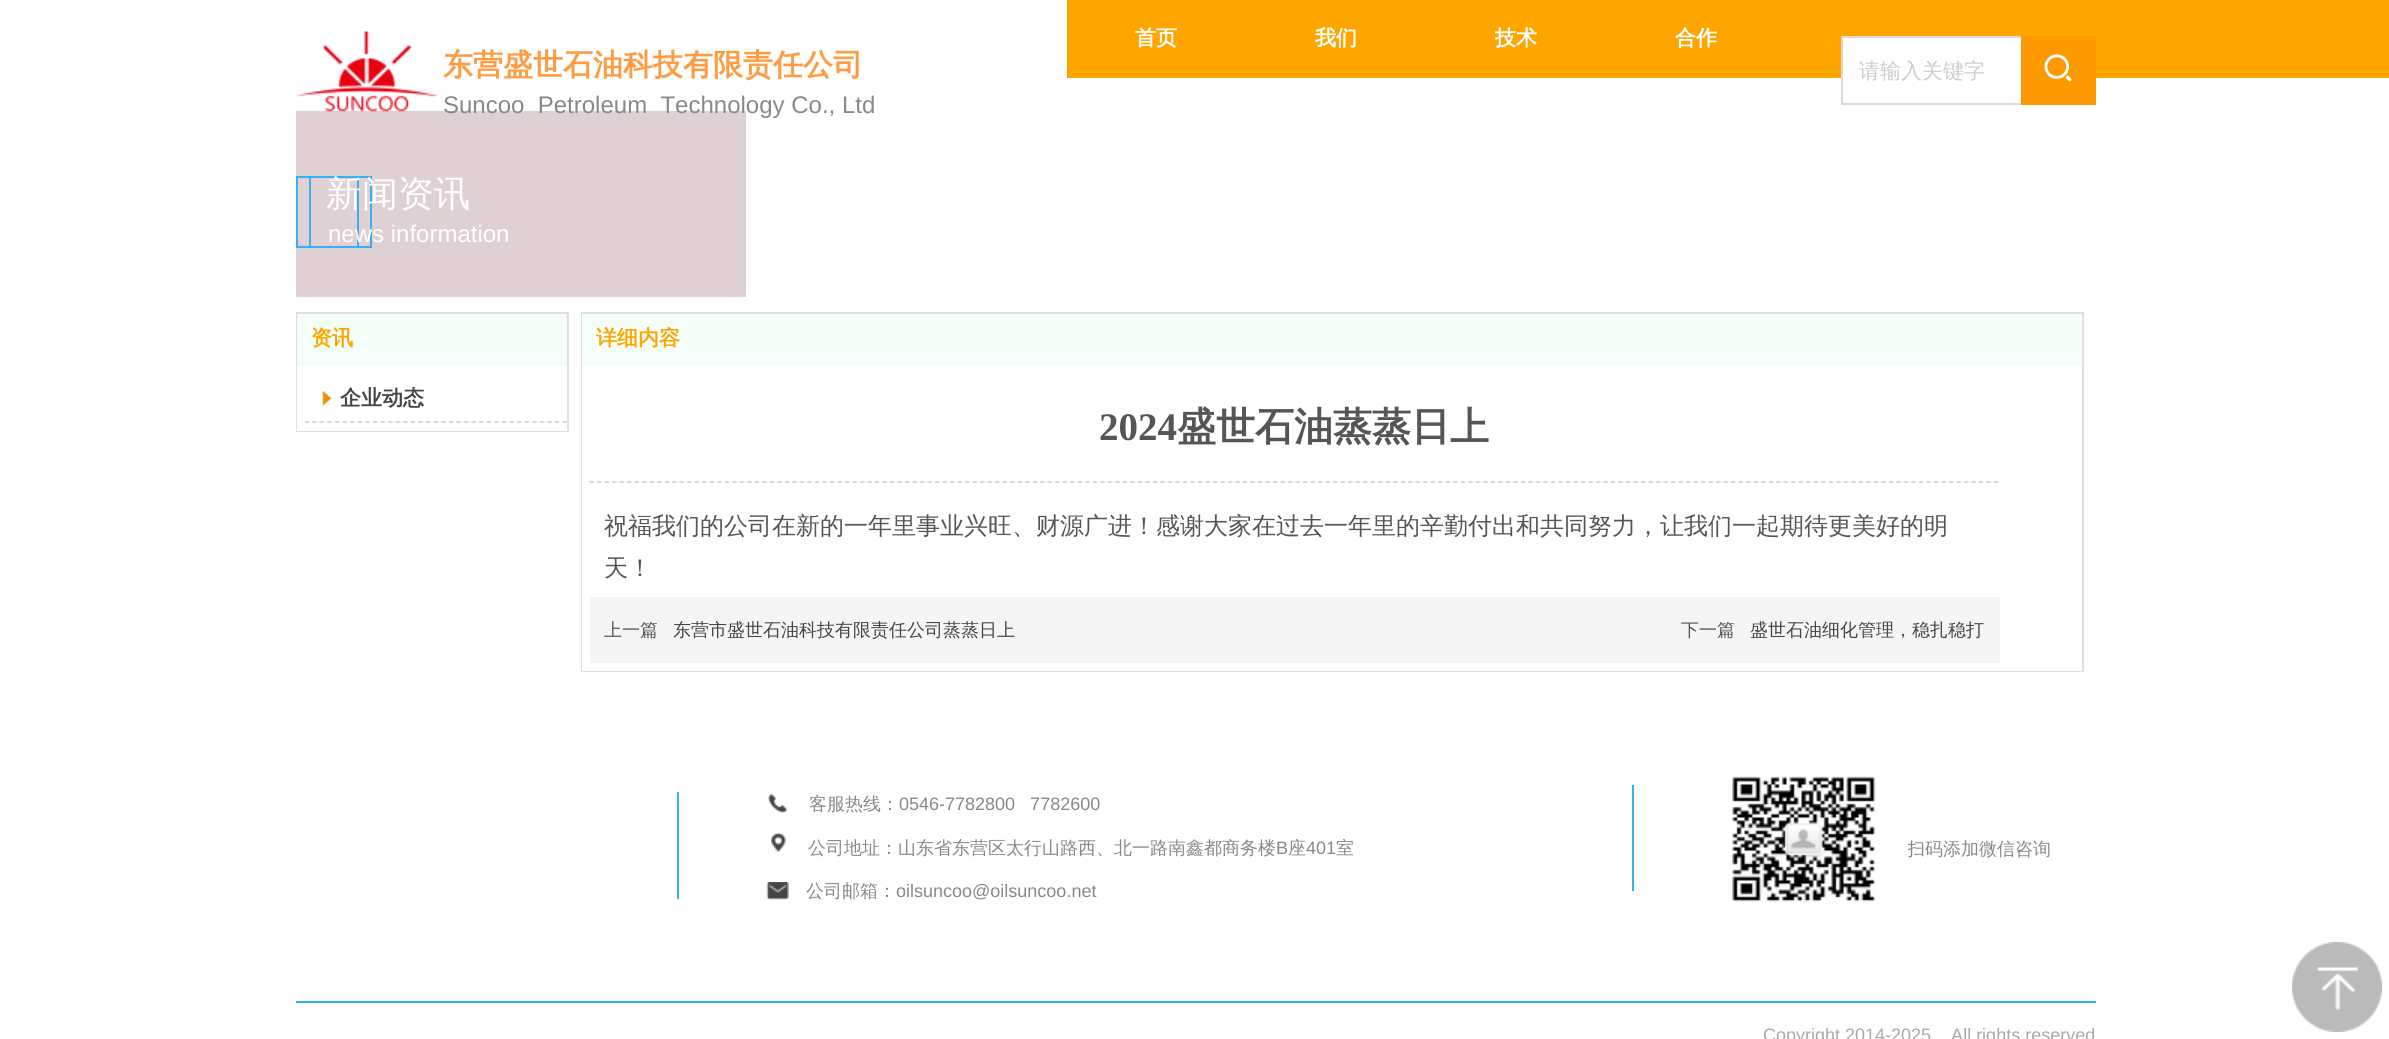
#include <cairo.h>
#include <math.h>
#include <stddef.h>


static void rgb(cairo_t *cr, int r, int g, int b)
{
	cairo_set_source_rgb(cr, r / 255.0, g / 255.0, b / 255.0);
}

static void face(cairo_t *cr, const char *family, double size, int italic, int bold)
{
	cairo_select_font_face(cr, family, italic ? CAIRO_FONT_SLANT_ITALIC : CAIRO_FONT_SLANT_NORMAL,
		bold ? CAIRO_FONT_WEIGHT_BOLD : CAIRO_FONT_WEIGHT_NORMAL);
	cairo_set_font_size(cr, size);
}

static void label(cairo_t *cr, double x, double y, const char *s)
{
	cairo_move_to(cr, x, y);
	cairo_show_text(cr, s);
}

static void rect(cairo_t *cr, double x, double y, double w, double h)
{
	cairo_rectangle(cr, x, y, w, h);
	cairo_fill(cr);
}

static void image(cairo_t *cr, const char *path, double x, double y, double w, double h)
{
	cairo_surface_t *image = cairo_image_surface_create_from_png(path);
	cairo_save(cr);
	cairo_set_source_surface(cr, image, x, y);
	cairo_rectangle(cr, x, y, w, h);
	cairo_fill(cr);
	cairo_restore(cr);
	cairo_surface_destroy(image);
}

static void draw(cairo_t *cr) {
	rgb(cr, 255, 255, 255);
	cairo_paint(cr);
	rgb(cr, 254, 165, 0);
	rect(cr, 1067, 0, 1322, 78);
	face(cr, "WenQuanYi Zen Hei", 21, 0, 1);
	rgb(cr, 255, 255, 255);
	label(cr, 1135, 45, "首页");
	label(cr, 1315, 45, "我们");
	label(cr, 1495, 45, "技术");
	label(cr, 1675, 45, "合作");
	rgb(cr, 223, 208, 211);
	rect(cr, 296, 111, 450, 186);
	image(cr, "image0.png", 296, 31, 141, 81);
	face(cr, "WenQuanYi Zen Hei", 30, 0, 1);
	rgb(cr, 255, 156, 65);
	label(cr, 443, 75, "东营盛世石油科技有限责任公司");
	face(cr, "Liberation Sans", 24, 0, 0);
	rgb(cr, 136, 136, 136);
	label(cr, 443, 113, "Suncoo  Petroleum  Technology Co., Ltd");
	rgb(cr, 255, 255, 255);
	rect(cr, 1843, 38, 178, 40);
	cairo_rectangle(cr, 1842, 37, 253, 67);
	rgb(cr, 219, 219, 219);
	cairo_stroke(cr);
	face(cr, "WenQuanYi Zen Hei Medium", 21, 0, 0);
	rgb(cr, 204, 204, 204);
	label(cr, 1859, 78, "请输入关键字");
	rgb(cr, 255, 153, 0);
	rect(cr, 2021, 36, 75, 69);
	image(cr, "image1.png", 2044, 54, 28, 28);
	cairo_rectangle(cr, 297, 177, 61, 70);
	rgb(cr, 54, 176, 243);
	cairo_stroke(cr);
	cairo_rectangle(cr, 310, 177, 61, 70);
	cairo_stroke(cr);
	face(cr, "WenQuanYi Zen Hei Medium", 36, 0, 0);
	rgb(cr, 255, 255, 255);
	label(cr, 326, 206, "新闻资讯");
	face(cr, "Liberation Sans", 24, 0, 0);
	label(cr, 328, 242, "news information");
	cairo_rectangle(cr, 297, 313, 271, 118);
	rgb(cr, 224, 223, 221);
	cairo_stroke(cr);
	rgb(cr, 245, 255, 250);
	rect(cr, 297, 314, 270, 52);
	face(cr, "WenQuanYi Zen Hei", 21, 0, 1);
	rgb(cr, 255, 165, 0);
	label(cr, 311, 345, "资讯");
	rgb(cr, 255, 255, 255);
	rect(cr, 297, 366, 270, 65);
	cairo_save(cr);
	cairo_rectangle(cr, 305, 374, 262, 49);
	cairo_clip(cr);
	cairo_new_path(cr);
	cairo_move_to(cr, 304.5, 422);
	cairo_line_to(cr, 574.5, 422);
	rgb(cr, 204, 204, 204);
	cairo_set_line_width(cr, 1.5);
	cairo_set_dash(cr, (double[]){4.5, 3.09}, 2, 0);
	cairo_stroke(cr);
	cairo_restore(cr);
	image(cr, "image2.png", 322, 391, 10, 15);
	rgb(cr, 68, 68, 68);
	label(cr, 340, 405, "企业动态");
	cairo_rectangle(cr, 582, 313, 1501, 358);
	rgb(cr, 224, 223, 221);
	cairo_stroke(cr);
	rgb(cr, 245, 255, 250);
	rect(cr, 582, 314, 1500, 52);
	rgb(cr, 255, 165, 0);
	label(cr, 596, 345, "详细内容");
	rgb(cr, 255, 255, 255);
	rect(cr, 582, 366, 1500, 305);
	cairo_new_path(cr);
	cairo_move_to(cr, 589.5, 482);
	cairo_line_to(cr, 1999.5, 482);
	rgb(cr, 204, 204, 204);
	cairo_set_line_width(cr, 1.5);
	cairo_set_dash(cr, (double[]){4.5, 3.01}, 2, 0);
	cairo_stroke(cr);
	face(cr, "Liberation Serif", 39, 0, 1);
	rgb(cr, 85, 85, 85);
	label(cr, 1099, 440, "2024");
	face(cr, "WenQuanYi Zen Hei", 39, 0, 1);
	label(cr, 1177, 440, "盛世石油蒸蒸日上");
	face(cr, "WenQuanYi Zen Hei Medium", 24, 0, 0);
	label(cr, 604, 534, "祝福我们的公司在新的一年里事业兴旺、财源广进！感谢大家在过去一年里的辛勤付出和共同努力，让我们一起期待更美好的明");
	label(cr, 604, 576, "天！");
	rgb(cr, 245, 245, 245);
	rect(cr, 590, 597, 1410, 66);
	face(cr, "WenQuanYi Zen Hei Medium", 18, 0, 0);
	rgb(cr, 85, 85, 85);
	label(cr, 604, 636, "上一篇");
	rgb(cr, 68, 68, 68);
	label(cr, 673, 636, "东营市盛世石油科技有限责任公司蒸蒸日上");
	rgb(cr, 85, 85, 85);
	label(cr, 1681, 636, "下一篇");
	rgb(cr, 68, 68, 68);
	label(cr, 1750, 636, "盛世石油细化管理，稳扎稳打");
	rgb(cr, 54, 176, 243);
	rect(cr, 677, 792, 2, 107);
	image(cr, "image3.png", 768, 793, 20, 20);
	rgb(cr, 136, 136, 136);
	label(cr, 809, 810, "客服热线：");
	face(cr, "Liberation Sans", 18, 0, 0);
	label(cr, 899, 810, "0546-7782800   7782600");
	rgb(cr, 54, 176, 243);
	rect(cr, 1632, 785, 2, 106);
	image(cr, "image4.png", 1732, 776, 144, 126);
	image(cr, "image5.png", 771, 832, 15, 20);
	face(cr, "WenQuanYi Zen Hei Medium", 18, 0, 0);
	rgb(cr, 136, 136, 136);
	label(cr, 808, 854, "公司地址：山东省东营区太行山路西、北一路南鑫都商务楼");
	face(cr, "Liberation Sans", 18, 0, 0);
	label(cr, 1276, 854, "B");
	face(cr, "WenQuanYi Zen Hei Medium", 18, 0, 0);
	label(cr, 1288, 854, "座");
	face(cr, "Liberation Sans", 18, 0, 0);
	label(cr, 1306, 854, "401");
	face(cr, "WenQuanYi Zen Hei Medium", 18, 0, 0);
	label(cr, 1336, 854, "室");
	cairo_save(cr);
	cairo_rectangle(cr, 1908, 839, 159, 37);
	cairo_clip(cr);
	label(cr, 1907, 855, "扫码添加微信咨询");
	cairo_restore(cr);
	image(cr, "image6.png", 766, 882, 23, 18);
	label(cr, 806, 897, "公司邮箱：");
	face(cr, "Liberation Sans", 18, 0, 0);
	label(cr, 896, 897, "oilsuncoo@oilsuncoo.net");
	rgb(cr, 54, 176, 243);
	rect(cr, 296, 1001, 1800, 2);
	rgb(cr, 169, 169, 169);
	label(cr, 1763, 1041, "Copyright 2014-2025    All rights reserved");
	image(cr, "image7.png", 2292, 942, 90, 90);
}

int main(void) {
	cairo_surface_t *surface = cairo_image_surface_create(CAIRO_FORMAT_RGB24, 2389, 1039);
	cairo_t *cr = cairo_create(surface);
	cairo_font_options_t *options = cairo_font_options_create();
	cairo_font_options_set_hint_metrics(options, CAIRO_HINT_METRICS_OFF);
	cairo_font_options_set_hint_style(options, CAIRO_HINT_STYLE_NONE);
	cairo_set_font_options(cr, options);
	cairo_set_miter_limit(cr, 4);
	draw(cr);
	cairo_surface_write_to_png(surface, "render.png");
	cairo_font_options_destroy(options);
	cairo_destroy(cr);
	cairo_surface_destroy(surface);
	return 0;
}
